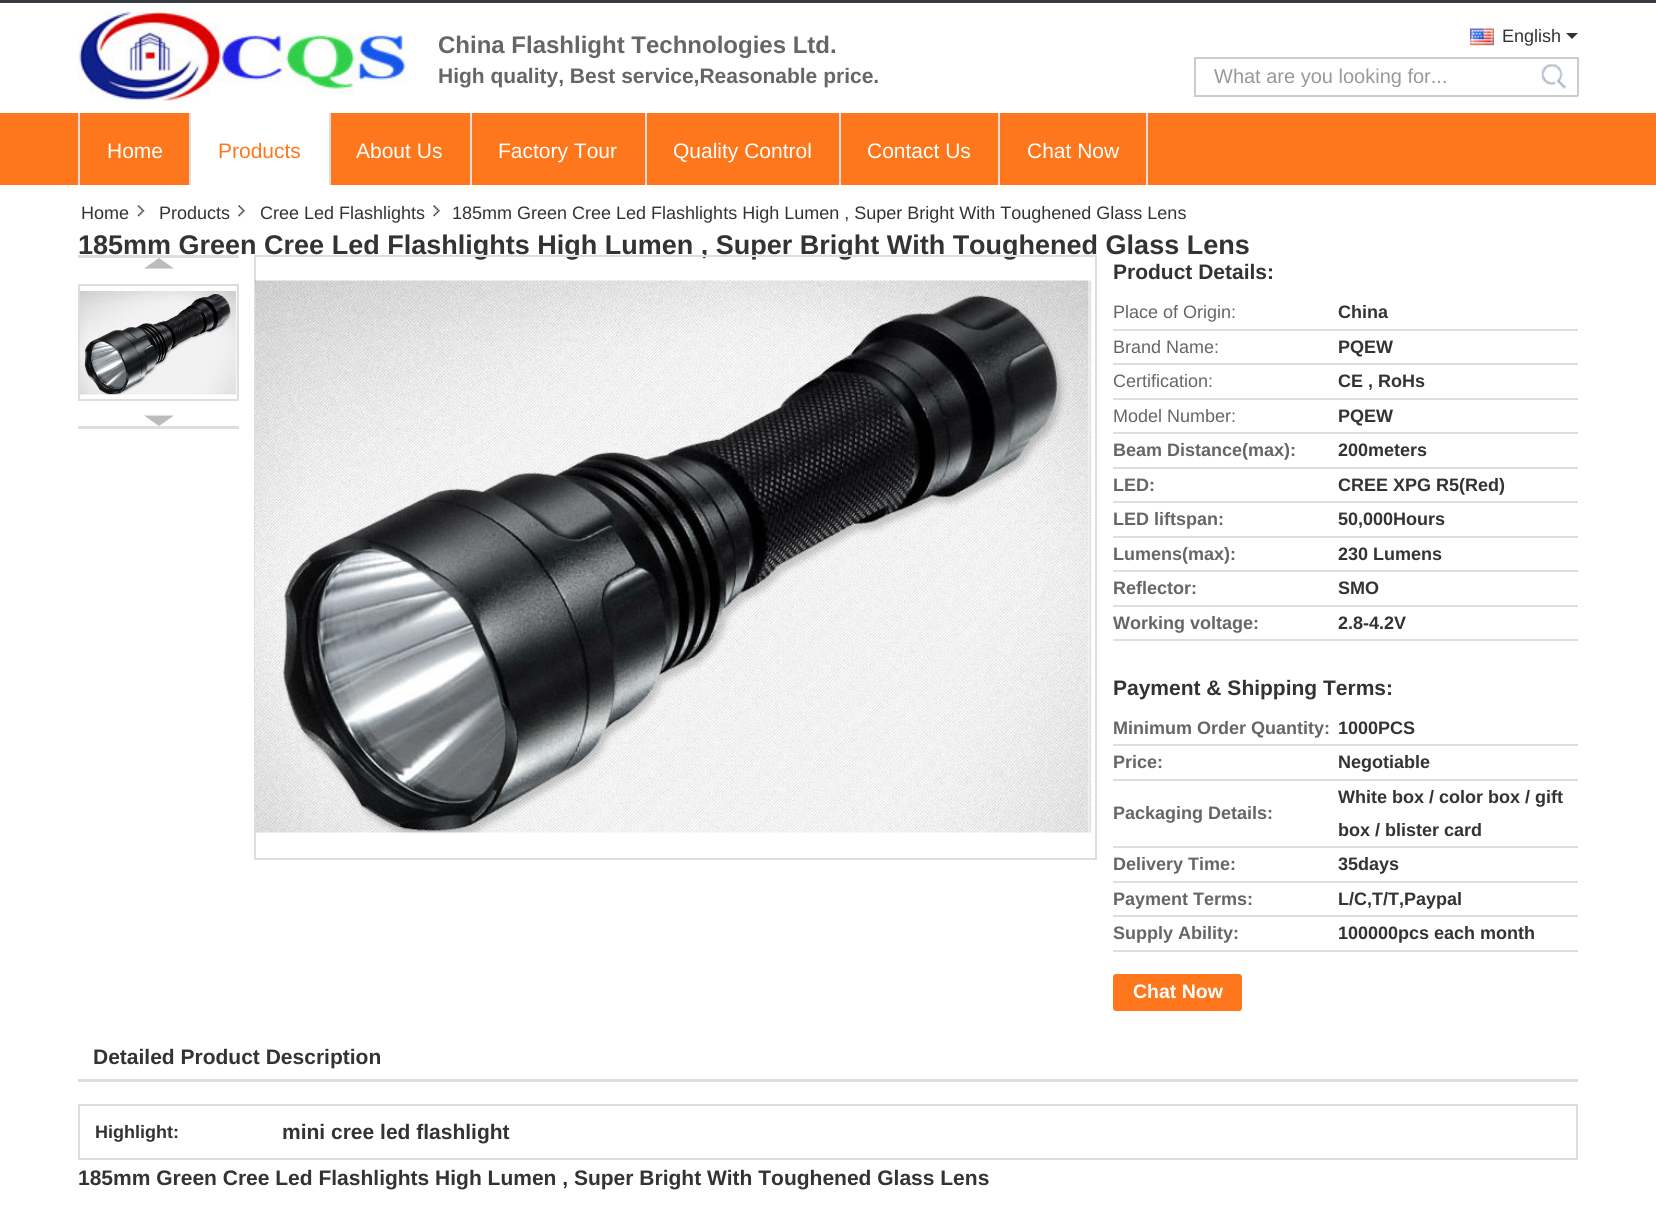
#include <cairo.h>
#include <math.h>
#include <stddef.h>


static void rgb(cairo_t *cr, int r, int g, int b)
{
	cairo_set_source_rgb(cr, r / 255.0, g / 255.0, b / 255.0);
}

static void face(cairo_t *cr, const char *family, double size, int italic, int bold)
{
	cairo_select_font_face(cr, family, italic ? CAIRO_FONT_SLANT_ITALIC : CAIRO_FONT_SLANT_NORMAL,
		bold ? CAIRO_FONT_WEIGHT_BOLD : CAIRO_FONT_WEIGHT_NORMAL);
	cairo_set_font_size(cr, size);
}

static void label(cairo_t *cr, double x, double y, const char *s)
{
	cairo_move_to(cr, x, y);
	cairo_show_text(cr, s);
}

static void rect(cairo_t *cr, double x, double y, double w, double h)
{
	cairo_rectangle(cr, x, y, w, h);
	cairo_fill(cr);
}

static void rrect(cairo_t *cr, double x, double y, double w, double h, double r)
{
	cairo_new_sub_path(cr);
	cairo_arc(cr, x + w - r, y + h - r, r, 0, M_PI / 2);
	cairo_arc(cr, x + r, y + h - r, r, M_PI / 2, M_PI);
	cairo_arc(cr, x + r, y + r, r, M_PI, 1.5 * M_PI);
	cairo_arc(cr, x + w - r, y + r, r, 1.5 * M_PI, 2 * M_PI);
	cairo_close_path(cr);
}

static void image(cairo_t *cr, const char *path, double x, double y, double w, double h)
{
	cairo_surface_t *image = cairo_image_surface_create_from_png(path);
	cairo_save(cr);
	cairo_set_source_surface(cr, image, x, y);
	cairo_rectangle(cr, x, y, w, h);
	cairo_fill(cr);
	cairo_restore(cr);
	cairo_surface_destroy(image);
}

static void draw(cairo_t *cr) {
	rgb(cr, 255, 255, 255);
	cairo_paint(cr);
	rgb(cr, 55, 61, 67);
	rect(cr, 0, 0, 1656, 3);
	image(cr, "image0.png", 78, 10, 330, 91);
	face(cr, "Liberation Sans", 24, 0, 1);
	rgb(cr, 102, 102, 102);
	label(cr, 438, 53, "China Flashlight Technologies Ltd.");
	face(cr, "Liberation Sans", 21, 0, 1);
	label(cr, 438, 83, "High quality, Best service,Reasonable price.");
	image(cr, "image1.png", 1470, 28, 24, 18);
	face(cr, "Liberation Sans", 18, 0, 0);
	rgb(cr, 51, 51, 51);
	label(cr, 1502, 42, "English");
	cairo_new_path(cr);
	cairo_move_to(cr, 1566, 33);
	cairo_line_to(cr, 1578, 33);
	cairo_line_to(cr, 1572, 39);
	cairo_close_path(cr);
	cairo_fill(cr);
	rgb(cr, 204, 204, 204);
	rect(cr, 1194, 57, 384, 2);
	rect(cr, 1194, 95, 347, 2);
	rect(cr, 1194, 57, 2, 39);
	cairo_save(cr);
	cairo_rectangle(cr, 1203, 65, 330, 22);
	cairo_clip(cr);
	face(cr, "Liberation Sans", 20, 0, 0);
	rgb(cr, 153, 153, 153);
	label(cr, 1214, 83, "What are you looking for...");
	cairo_restore(cr);
	image(cr, "image2.png", 1541, 64, 26, 25);
	rect(cr, 1577, 57, 2, 39);
	rect(cr, 1541, 95, 37, 2);
	rgb(cr, 255, 119, 28);
	rect(cr, 0, 113, 1656, 72);
	rgb(cr, 222, 222, 222);
	rect(cr, 78, 113, 2, 72);
	face(cr, "Liberation Sans", 21, 0, 0);
	rgb(cr, 255, 255, 255);
	label(cr, 107, 158, "Home");
	rect(cr, 191, 113, 138, 72);
	rgb(cr, 222, 222, 222);
	rect(cr, 189, 113, 2, 72);
	rgb(cr, 255, 119, 28);
	label(cr, 218, 158, "Products");
	rgb(cr, 222, 222, 222);
	rect(cr, 329, 113, 2, 72);
	rgb(cr, 255, 255, 255);
	label(cr, 356, 158, "About Us");
	rgb(cr, 222, 222, 222);
	rect(cr, 470, 113, 2, 72);
	rgb(cr, 255, 255, 255);
	label(cr, 498, 158, "Factory Tour");
	rgb(cr, 222, 222, 222);
	rect(cr, 645, 113, 2, 72);
	rgb(cr, 255, 255, 255);
	label(cr, 673, 158, "Quality Control");
	rgb(cr, 222, 222, 222);
	rect(cr, 839, 113, 2, 72);
	rgb(cr, 255, 255, 255);
	label(cr, 867, 158, "Contact Us");
	rgb(cr, 222, 222, 222);
	rect(cr, 1146, 113, 2, 72);
	rect(cr, 998, 113, 2, 72);
	rgb(cr, 255, 255, 255);
	label(cr, 1027, 158, "Chat Now");
	image(cr, "image3.png", 137, 205, 8, 12);
	face(cr, "Liberation Sans", 18, 0, 0);
	rgb(cr, 51, 51, 51);
	label(cr, 81, 219, "Home");
	image(cr, "image4.png", 238, 205, 7, 12);
	label(cr, 159, 219, "Products");
	image(cr, "image5.png", 433, 205, 7, 12);
	label(cr, 260, 219, "Cree Led Flashlights");
	label(cr, 452, 219, "185mm Green Cree Led Flashlights High Lumen , Super Bright With Toughened Glass Lens");
	face(cr, "Liberation Sans", 27, 0, 1);
	label(cr, 78, 254, "185mm Green Cree Led Flashlights High Lumen , Super Bright With Toughened Glass Lens");
	rgb(cr, 222, 222, 222);
	rect(cr, 78, 255, 161, 3);
	rgb(cr, 187, 187, 187);
	cairo_new_path(cr);
	cairo_move_to(cr, 174, 268.5);
	cairo_line_to(cr, 144, 268.5);
	cairo_line_to(cr, 159, 258);
	cairo_close_path(cr);
	cairo_fill(cr);
	cairo_rectangle(cr, 79, 285, 159, 115);
	rgb(cr, 222, 222, 222);
	cairo_stroke(cr);
	image(cr, "image6.png", 79, 291, 158, 104);
	rect(cr, 78, 426, 161, 3);
	rgb(cr, 187, 187, 187);
	cairo_new_path(cr);
	cairo_move_to(cr, 144, 415.5);
	cairo_line_to(cr, 174, 415.5);
	cairo_line_to(cr, 159, 426);
	cairo_close_path(cr);
	cairo_fill(cr);
	cairo_rectangle(cr, 255, 256, 841, 603);
	rgb(cr, 222, 222, 222);
	cairo_stroke(cr);
	image(cr, "image7.png", 255, 280, 838, 553);
	face(cr, "Liberation Sans", 21, 0, 1);
	rgb(cr, 51, 51, 51);
	label(cr, 1113, 279, "Product Details:");
	rgb(cr, 222, 222, 222);
	rect(cr, 1113, 329, 465, 2);
	face(cr, "Liberation Sans", 18, 0, 0);
	rgb(cr, 102, 102, 102);
	label(cr, 1113, 318, "Place of Origin:");
	face(cr, "Liberation Sans", 18, 0, 1);
	rgb(cr, 51, 51, 51);
	label(cr, 1338, 318, "China");
	rgb(cr, 222, 222, 222);
	rect(cr, 1113, 363, 465, 2);
	face(cr, "Liberation Sans", 18, 0, 0);
	rgb(cr, 102, 102, 102);
	label(cr, 1113, 353, "Brand Name:");
	face(cr, "Liberation Sans", 18, 0, 1);
	rgb(cr, 51, 51, 51);
	label(cr, 1338, 353, "PQEW");
	rgb(cr, 222, 222, 222);
	rect(cr, 1113, 398, 465, 2);
	face(cr, "Liberation Sans", 18, 0, 0);
	rgb(cr, 102, 102, 102);
	label(cr, 1113, 387, "Certification:");
	face(cr, "Liberation Sans", 18, 0, 1);
	rgb(cr, 51, 51, 51);
	label(cr, 1338, 387, "CE , RoHs");
	rgb(cr, 222, 222, 222);
	rect(cr, 1113, 432, 465, 2);
	face(cr, "Liberation Sans", 18, 0, 0);
	rgb(cr, 102, 102, 102);
	label(cr, 1113, 422, "Model Number:");
	face(cr, "Liberation Sans", 18, 0, 1);
	rgb(cr, 51, 51, 51);
	label(cr, 1338, 422, "PQEW");
	rgb(cr, 222, 222, 222);
	rect(cr, 1113, 467, 465, 2);
	rgb(cr, 102, 102, 102);
	label(cr, 1113, 456, "Beam Distance(max):");
	rgb(cr, 51, 51, 51);
	label(cr, 1338, 456, "200meters");
	rgb(cr, 222, 222, 222);
	rect(cr, 1113, 501, 465, 2);
	rgb(cr, 102, 102, 102);
	label(cr, 1113, 491, "LED:");
	rgb(cr, 51, 51, 51);
	label(cr, 1338, 491, "CREE XPG R5(Red)");
	rgb(cr, 222, 222, 222);
	rect(cr, 1113, 536, 465, 2);
	rgb(cr, 102, 102, 102);
	label(cr, 1113, 525, "LED liftspan:");
	rgb(cr, 51, 51, 51);
	label(cr, 1338, 525, "50,000Hours");
	rgb(cr, 222, 222, 222);
	rect(cr, 1113, 570, 465, 2);
	rgb(cr, 102, 102, 102);
	label(cr, 1113, 560, "Lumens(max):");
	rgb(cr, 51, 51, 51);
	label(cr, 1338, 560, "230 Lumens");
	rgb(cr, 222, 222, 222);
	rect(cr, 1113, 605, 465, 2);
	rgb(cr, 102, 102, 102);
	label(cr, 1113, 594, "Reflector:");
	rgb(cr, 51, 51, 51);
	label(cr, 1338, 594, "SMO");
	rgb(cr, 222, 222, 222);
	rect(cr, 1113, 639, 465, 2);
	rgb(cr, 102, 102, 102);
	label(cr, 1113, 629, "Working voltage:");
	rgb(cr, 51, 51, 51);
	label(cr, 1338, 629, "2.8-4.2V");
	face(cr, "Liberation Sans", 21, 0, 1);
	label(cr, 1113, 695, "Payment & Shipping Terms:");
	rgb(cr, 222, 222, 222);
	rect(cr, 1113, 744, 465, 2);
	face(cr, "Liberation Sans", 18, 0, 1);
	rgb(cr, 102, 102, 102);
	label(cr, 1113, 734, "Minimum Order Quantity:");
	rgb(cr, 51, 51, 51);
	label(cr, 1338, 734, "1000PCS");
	rgb(cr, 222, 222, 222);
	rect(cr, 1113, 779, 465, 2);
	rgb(cr, 102, 102, 102);
	label(cr, 1113, 768, "Price:");
	rgb(cr, 51, 51, 51);
	label(cr, 1338, 768, "Negotiable");
	rgb(cr, 222, 222, 222);
	rect(cr, 1113, 846, 465, 2);
	rgb(cr, 102, 102, 102);
	label(cr, 1113, 819, "Packaging Details:");
	rgb(cr, 51, 51, 51);
	label(cr, 1338, 803, "White box / color box / gift");
	label(cr, 1338, 836, "box / blister card");
	rgb(cr, 222, 222, 222);
	rect(cr, 1113, 881, 465, 2);
	rgb(cr, 102, 102, 102);
	label(cr, 1113, 870, "Delivery Time:");
	rgb(cr, 51, 51, 51);
	label(cr, 1338, 870, "35days");
	rgb(cr, 222, 222, 222);
	rect(cr, 1113, 915, 465, 2);
	rgb(cr, 102, 102, 102);
	label(cr, 1113, 905, "Payment Terms:");
	rgb(cr, 51, 51, 51);
	label(cr, 1338, 905, "L/C,T/T,Paypal");
	rgb(cr, 222, 222, 222);
	rect(cr, 1113, 950, 465, 2);
	rgb(cr, 102, 102, 102);
	label(cr, 1113, 939, "Supply Ability:");
	rgb(cr, 51, 51, 51);
	label(cr, 1338, 939, "100000pcs each month");
	rgb(cr, 255, 119, 28);
	rrect(cr, 1113, 974, 129, 37, 3);
	cairo_fill(cr);
	face(cr, "Liberation Sans", 19.5, 0, 1);
	rgb(cr, 255, 255, 255);
	label(cr, 1133, 998, "Chat Now");
	rgb(cr, 222, 222, 222);
	rect(cr, 78, 1079, 1500, 3);
	face(cr, "Liberation Sans", 21, 0, 1);
	rgb(cr, 51, 51, 51);
	label(cr, 93, 1064, "Detailed Product Description");
	cairo_rectangle(cr, 79, 1105, 1498, 54);
	rgb(cr, 221, 221, 221);
	cairo_stroke(cr);
	face(cr, "Liberation Sans", 18, 0, 1);
	rgb(cr, 51, 51, 51);
	label(cr, 95, 1138, "Highlight:");
	face(cr, "Liberation Sans", 21, 0, 1);
	label(cr, 282, 1139, "mini cree led flashlight");
	label(cr, 78, 1185, "185mm Green Cree Led Flashlights High Lumen , Super Bright With Toughened Glass Lens");
}

int main(void) {
	cairo_surface_t *surface = cairo_image_surface_create(CAIRO_FORMAT_RGB24, 1656, 1205);
	cairo_t *cr = cairo_create(surface);
	cairo_font_options_t *options = cairo_font_options_create();
	cairo_font_options_set_hint_metrics(options, CAIRO_HINT_METRICS_OFF);
	cairo_font_options_set_hint_style(options, CAIRO_HINT_STYLE_NONE);
	cairo_set_font_options(cr, options);
	cairo_set_miter_limit(cr, 4);
	draw(cr);
	cairo_surface_write_to_png(surface, "render.png");
	cairo_font_options_destroy(options);
	cairo_destroy(cr);
	cairo_surface_destroy(surface);
	return 0;
}
